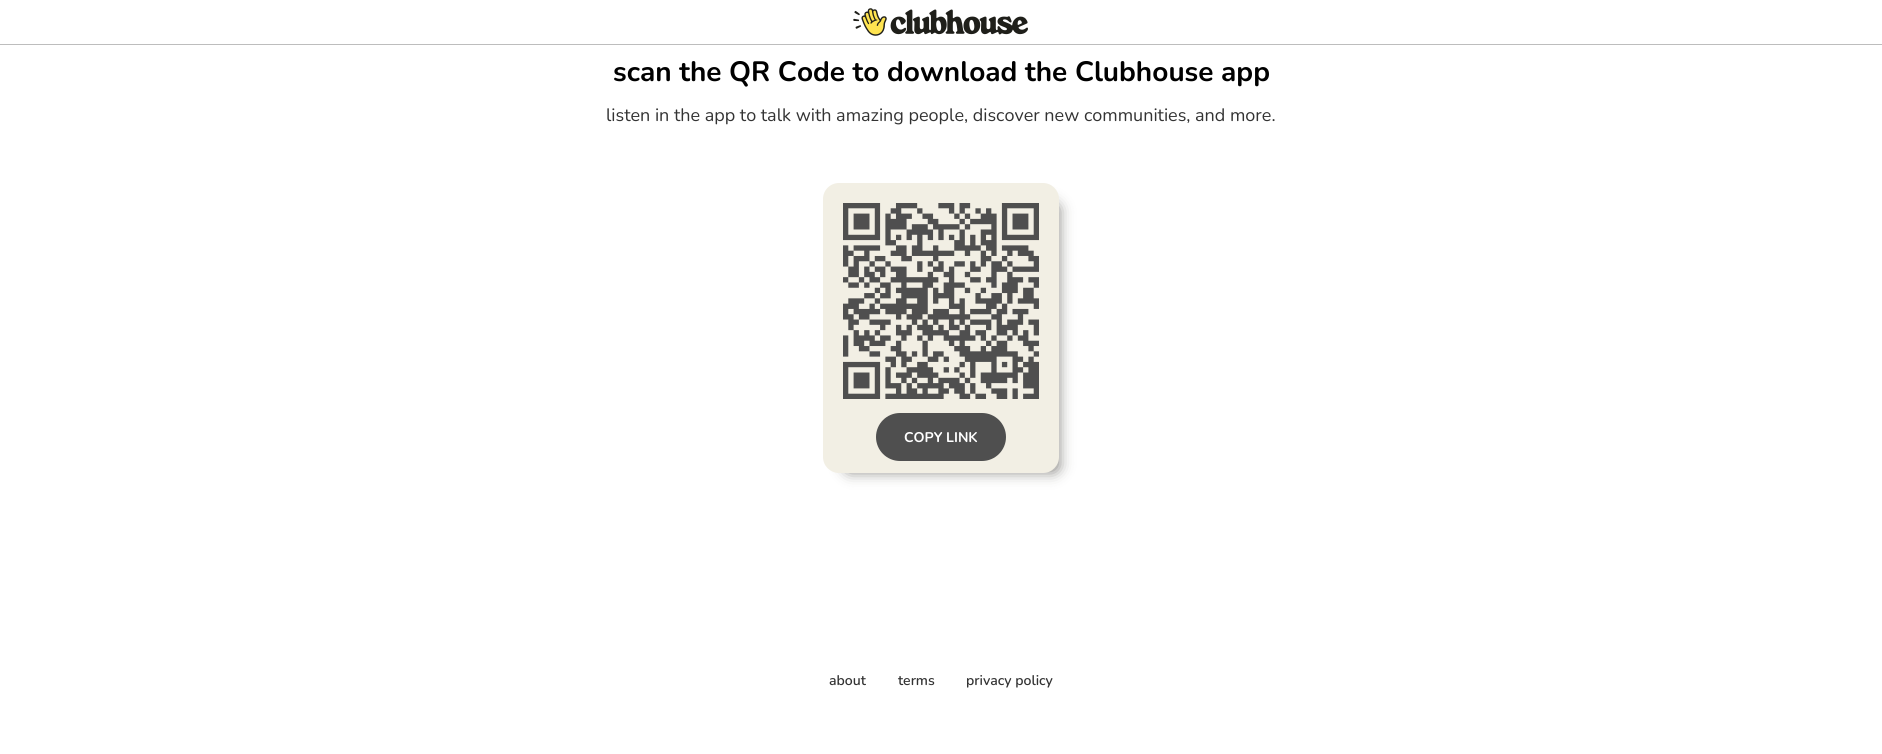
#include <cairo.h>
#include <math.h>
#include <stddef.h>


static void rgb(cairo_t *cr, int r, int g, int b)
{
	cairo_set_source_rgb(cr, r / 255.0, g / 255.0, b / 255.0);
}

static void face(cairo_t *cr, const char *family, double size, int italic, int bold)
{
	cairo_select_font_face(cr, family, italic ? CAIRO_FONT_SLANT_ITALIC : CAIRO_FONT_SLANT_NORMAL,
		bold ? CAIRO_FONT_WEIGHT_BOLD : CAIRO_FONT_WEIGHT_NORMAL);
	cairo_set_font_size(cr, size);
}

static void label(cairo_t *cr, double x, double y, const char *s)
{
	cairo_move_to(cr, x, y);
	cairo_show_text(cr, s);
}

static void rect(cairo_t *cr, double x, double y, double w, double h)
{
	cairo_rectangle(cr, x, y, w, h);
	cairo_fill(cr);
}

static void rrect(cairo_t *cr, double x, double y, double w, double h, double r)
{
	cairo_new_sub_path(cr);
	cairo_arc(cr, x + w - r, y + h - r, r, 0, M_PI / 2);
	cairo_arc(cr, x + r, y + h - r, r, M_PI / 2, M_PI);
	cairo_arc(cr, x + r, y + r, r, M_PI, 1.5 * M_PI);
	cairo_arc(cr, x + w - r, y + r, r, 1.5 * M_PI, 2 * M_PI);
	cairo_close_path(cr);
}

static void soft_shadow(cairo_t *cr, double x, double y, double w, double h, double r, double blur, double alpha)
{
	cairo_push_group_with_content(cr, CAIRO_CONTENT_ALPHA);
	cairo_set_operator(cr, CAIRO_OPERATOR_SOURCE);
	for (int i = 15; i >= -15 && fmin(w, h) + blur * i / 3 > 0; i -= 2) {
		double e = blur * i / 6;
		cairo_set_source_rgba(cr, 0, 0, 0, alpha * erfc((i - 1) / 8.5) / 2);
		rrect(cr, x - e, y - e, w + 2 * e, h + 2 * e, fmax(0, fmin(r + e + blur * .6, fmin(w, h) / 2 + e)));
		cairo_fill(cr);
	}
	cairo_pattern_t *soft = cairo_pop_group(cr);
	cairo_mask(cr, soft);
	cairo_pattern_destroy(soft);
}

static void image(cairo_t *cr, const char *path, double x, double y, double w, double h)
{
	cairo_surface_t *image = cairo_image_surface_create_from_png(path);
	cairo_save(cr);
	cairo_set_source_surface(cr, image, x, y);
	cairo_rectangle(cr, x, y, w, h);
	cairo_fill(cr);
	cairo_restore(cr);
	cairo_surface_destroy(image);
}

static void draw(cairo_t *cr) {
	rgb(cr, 255, 255, 255);
	cairo_paint(cr);
	rgb(cr, 189, 189, 189);
	rect(cr, 0, 44, 1882, 1);
	image(cr, "image0.png", 853, 8, 175, 28);
	face(cr, "Nunito", 28, 0, 1);
	rgb(cr, 0, 0, 0);
	label(cr, 613, 81, "scan the QR Code to download the Clubhouse app");
	face(cr, "Nunito", 18, 0, 0);
	rgb(cr, 51, 51, 51);
	label(cr, 606, 121, "listen in the app to talk with amazing people, discover new communities, and more.");
	rgb(cr, 119, 118, 113);
	soft_shadow(cr, 846, 205, 212, 266, 4, 7.5, 1);
	rgb(cr, 242, 239, 228);
	rrect(cr, 823, 183, 236, 290, 16);
	cairo_fill(cr);
	image(cr, "image1.png", 843, 203, 196, 196);
	rgb(cr, 79, 79, 79);
	rrect(cr, 876, 413, 130, 48, 24);
	cairo_fill(cr);
	face(cr, "Nunito", 14, 0, 1);
	rgb(cr, 255, 255, 255);
	label(cr, 904, 442, "COPY LINK");
	face(cr, "Nunito SemiBold", 14, 0, 0);
	rgb(cr, 51, 51, 51);
	label(cr, 829, 685, "about");
	label(cr, 898, 685, "terms");
	label(cr, 966, 685, "privacy policy");
}

int main(void) {
	cairo_surface_t *surface = cairo_image_surface_create(CAIRO_FORMAT_RGB24, 1882, 754);
	cairo_t *cr = cairo_create(surface);
	cairo_font_options_t *options = cairo_font_options_create();
	cairo_font_options_set_hint_metrics(options, CAIRO_HINT_METRICS_OFF);
	cairo_font_options_set_hint_style(options, CAIRO_HINT_STYLE_NONE);
	cairo_set_font_options(cr, options);
	cairo_set_miter_limit(cr, 4);
	draw(cr);
	cairo_surface_write_to_png(surface, "render.png");
	cairo_font_options_destroy(options);
	cairo_destroy(cr);
	cairo_surface_destroy(surface);
	return 0;
}
